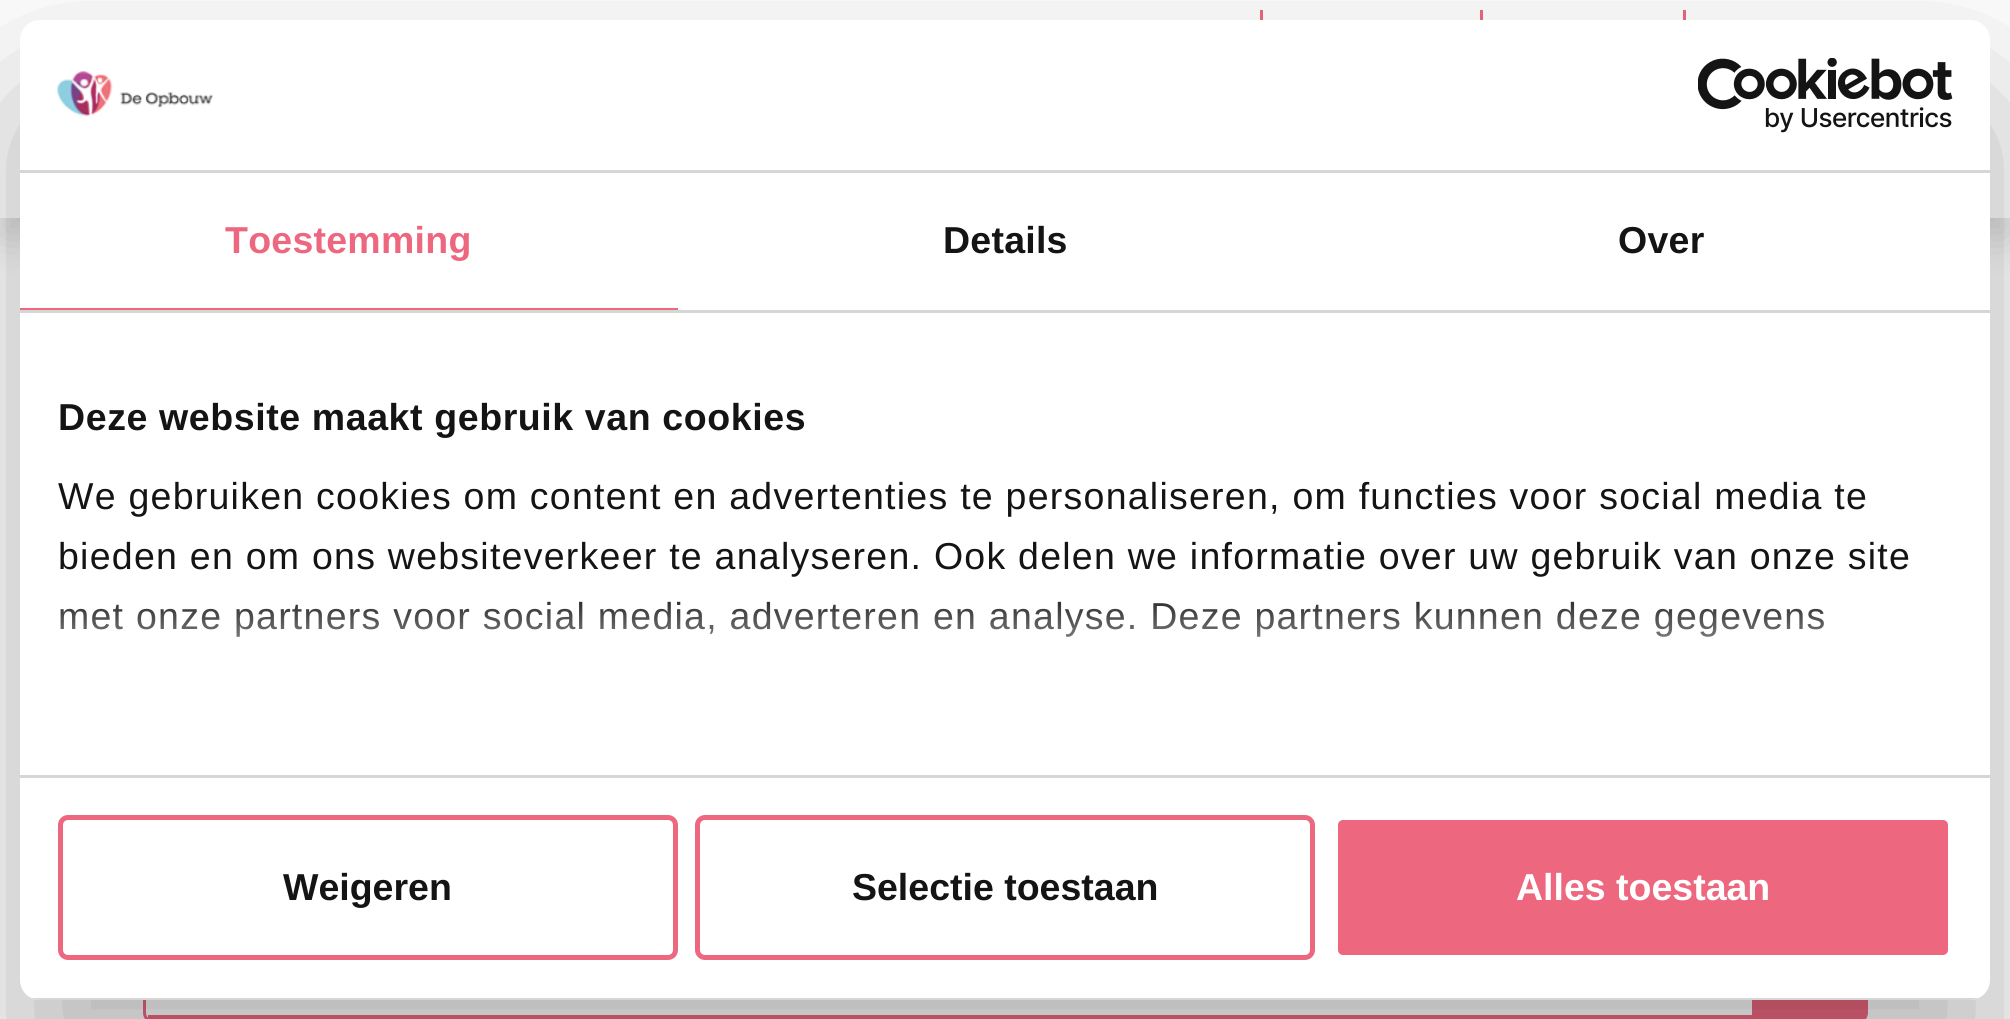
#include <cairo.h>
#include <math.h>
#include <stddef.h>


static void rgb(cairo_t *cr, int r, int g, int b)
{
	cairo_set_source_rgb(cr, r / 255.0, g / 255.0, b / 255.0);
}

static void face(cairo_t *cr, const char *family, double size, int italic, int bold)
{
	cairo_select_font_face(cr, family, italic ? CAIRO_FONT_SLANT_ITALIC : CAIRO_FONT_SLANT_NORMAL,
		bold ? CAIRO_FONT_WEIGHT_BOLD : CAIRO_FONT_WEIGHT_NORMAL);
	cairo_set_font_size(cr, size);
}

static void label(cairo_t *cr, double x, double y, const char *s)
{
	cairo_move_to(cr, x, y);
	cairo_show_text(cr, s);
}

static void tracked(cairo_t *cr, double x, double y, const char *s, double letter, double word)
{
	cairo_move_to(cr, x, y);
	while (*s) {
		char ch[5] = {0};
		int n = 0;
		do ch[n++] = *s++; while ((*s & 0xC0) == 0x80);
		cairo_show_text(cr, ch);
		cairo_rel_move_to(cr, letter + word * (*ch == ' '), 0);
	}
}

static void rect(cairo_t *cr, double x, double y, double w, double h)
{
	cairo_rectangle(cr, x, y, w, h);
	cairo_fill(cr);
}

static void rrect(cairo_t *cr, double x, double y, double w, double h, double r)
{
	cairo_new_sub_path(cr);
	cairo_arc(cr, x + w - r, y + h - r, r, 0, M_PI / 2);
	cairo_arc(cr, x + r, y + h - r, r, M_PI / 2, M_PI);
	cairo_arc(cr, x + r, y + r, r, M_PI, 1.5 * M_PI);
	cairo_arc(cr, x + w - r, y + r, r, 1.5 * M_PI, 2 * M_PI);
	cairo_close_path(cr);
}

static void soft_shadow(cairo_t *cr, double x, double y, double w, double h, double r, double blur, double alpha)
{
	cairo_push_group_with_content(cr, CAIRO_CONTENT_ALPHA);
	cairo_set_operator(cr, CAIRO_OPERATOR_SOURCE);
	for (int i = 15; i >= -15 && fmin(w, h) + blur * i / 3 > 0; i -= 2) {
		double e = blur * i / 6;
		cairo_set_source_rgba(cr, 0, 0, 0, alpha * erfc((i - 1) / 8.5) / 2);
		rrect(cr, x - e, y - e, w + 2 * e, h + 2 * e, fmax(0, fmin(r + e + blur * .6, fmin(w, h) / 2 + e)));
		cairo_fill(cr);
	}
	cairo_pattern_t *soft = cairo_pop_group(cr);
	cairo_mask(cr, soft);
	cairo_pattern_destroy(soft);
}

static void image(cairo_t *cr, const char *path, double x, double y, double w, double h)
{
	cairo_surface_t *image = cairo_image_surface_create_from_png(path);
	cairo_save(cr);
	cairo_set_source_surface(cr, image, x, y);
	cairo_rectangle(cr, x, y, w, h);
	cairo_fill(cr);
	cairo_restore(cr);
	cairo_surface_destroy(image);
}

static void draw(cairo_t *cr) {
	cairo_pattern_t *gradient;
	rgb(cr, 255, 255, 255);
	cairo_paint(cr);
	rgb(cr, 0, 0, 0);
	soft_shadow(cr, 0, 20, 2010, 218, 0, 20, 0.15);
	rgb(cr, 255, 255, 255);
	rect(cr, 0, 0, 2010, 218);
	rgb(cr, 237, 104, 127);
	rect(cr, 1260, 10, 3, 10);
	rect(cr, 1480, 10, 3, 10);
	rect(cr, 1683, 10, 3, 10);
	cairo_new_path(cr);
	cairo_move_to(cr, 153, 911.5);
	cairo_line_to(cr, 1753.5, 911.5);
	cairo_line_to(cr, 1753.5, 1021.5);
	cairo_line_to(cr, 153, 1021.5);
	cairo_curve_to(cr, 148.5, 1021.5, 144.5, 1017.5, 144.5, 1013);
	cairo_line_to(cr, 144.5, 920);
	cairo_curve_to(cr, 144.5, 915.5, 148.5, 911.5, 153, 911.5);
	cairo_close_path(cr);
	cairo_set_line_width(cr, 3);
	cairo_stroke(cr);
	rect(cr, 148, 1015, 1607, 4);
	cairo_new_path(cr);
	cairo_move_to(cr, 1754.5, 911.5);
	cairo_line_to(cr, 1858, 911.5);
	cairo_curve_to(cr, 1862.5, 911.5, 1866.5, 915.5, 1866.5, 920);
	cairo_line_to(cr, 1866.5, 1013);
	cairo_curve_to(cr, 1866.5, 1017.5, 1862.5, 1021.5, 1858, 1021.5);
	cairo_line_to(cr, 1754.5, 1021.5);
	cairo_close_path(cr);
	cairo_fill_preserve(cr);
	cairo_stroke(cr);
	rgb(cr, 0, 0, 0);
	soft_shadow(cr, 20, 100, 1970, 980, 20, 85, 0.3);
	rgb(cr, 255, 255, 255);
	rrect(cr, 20, 20, 1970, 980, 20);
	cairo_fill(cr);
	rgb(cr, 214, 214, 214);
	rect(cr, 20, 170, 1970, 3);
	image(cr, "image0.png", 57, 70, 156, 47);
	image(cr, "image1.png", 1698, 58, 255, 75);
	rect(cr, 20, 310, 1970, 3);
	rgb(cr, 237, 103, 127);
	rect(cr, 20, 308, 658, 2);
	face(cr, "Liberation Sans", 37.5, 0, 1);
	tracked(cr, 225, 253, "Toestemming", 0.25, 0);
	rgb(cr, 20, 20, 20);
	tracked(cr, 943, 253, "Details", 0.25, 0);
	tracked(cr, 1618, 253, "Over", 0.25, 0);
	rgb(cr, 214, 214, 214);
	rect(cr, 20, 775, 1970, 3);
	rgb(cr, 20, 20, 20);
	tracked(cr, 58, 430, "Deze website maakt gebruik van cookies", 0.6, 0);
	face(cr, "Liberation Sans", 37.5, 0, 0);
	tracked(cr, 58, 509, "We gebruiken cookies om content en advertenties te personaliseren, om functies voor social media te", 1.25, 0);
	tracked(cr, 58, 569, "bieden en om ons websiteverkeer te analyseren. Ook delen we informatie over uw gebruik van onze site", 1.25, 0);
	tracked(cr, 58, 629, "met onze partners voor social media, adverteren en analyse. Deze partners kunnen deze gegevens", 1.25, 0);
	gradient = cairo_pattern_create_linear(989, 775, 989, 588);
	cairo_pattern_add_color_stop_rgba(gradient, 0, 1, 1, 1, 1);
	cairo_pattern_add_color_stop_rgba(gradient, 0.5, 1, 1, 1, 0.8);
	cairo_pattern_add_color_stop_rgba(gradient, 1, 1, 1, 1, 0);
	cairo_set_source(cr, gradient);
	cairo_pattern_destroy(gradient);
	rect(cr, 60, 601, 1764, 36);
	cairo_save(cr);
	rrect(cr, 20, 20, 1970, 980, 20);
	cairo_clip(cr);
	rgb(cr, 214, 214, 214);
	rect(cr, 31, 998, 1948, 2);
	cairo_restore(cr);
	rrect(cr, 60.5, 817.5, 615, 140, 7.5);
	rgb(cr, 237, 103, 127);
	cairo_set_line_width(cr, 5);
	cairo_stroke(cr);
	face(cr, "Liberation Sans", 37.5, 0, 1);
	rgb(cr, 20, 20, 20);
	label(cr, 283, 900, "Weigeren");
	rrect(cr, 697.5, 817.5, 615, 140, 7.5);
	rgb(cr, 237, 103, 127);
	cairo_stroke(cr);
	rgb(cr, 20, 20, 20);
	label(cr, 852, 900, "Selectie toestaan");
	rgb(cr, 237, 103, 127);
	rrect(cr, 1335.5, 817.5, 615, 140, 7.5);
	cairo_fill_preserve(cr);
	rgb(cr, 255, 255, 255);
	cairo_stroke(cr);
	label(cr, 1516, 900, "Alles toestaan");
}

int main(void) {
	cairo_surface_t *surface = cairo_image_surface_create(CAIRO_FORMAT_RGB24, 2010, 1019);
	cairo_t *cr = cairo_create(surface);
	cairo_font_options_t *options = cairo_font_options_create();
	cairo_font_options_set_hint_metrics(options, CAIRO_HINT_METRICS_OFF);
	cairo_font_options_set_hint_style(options, CAIRO_HINT_STYLE_NONE);
	cairo_set_font_options(cr, options);
	cairo_set_miter_limit(cr, 4);
	draw(cr);
	cairo_surface_write_to_png(surface, "render.png");
	cairo_font_options_destroy(options);
	cairo_destroy(cr);
	cairo_surface_destroy(surface);
	return 0;
}
